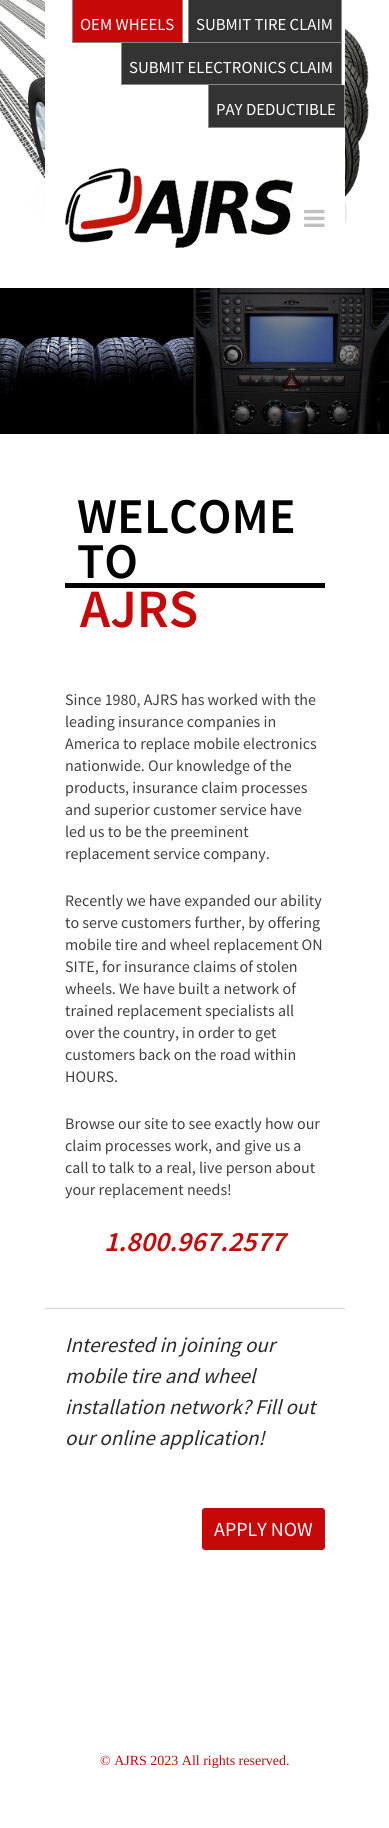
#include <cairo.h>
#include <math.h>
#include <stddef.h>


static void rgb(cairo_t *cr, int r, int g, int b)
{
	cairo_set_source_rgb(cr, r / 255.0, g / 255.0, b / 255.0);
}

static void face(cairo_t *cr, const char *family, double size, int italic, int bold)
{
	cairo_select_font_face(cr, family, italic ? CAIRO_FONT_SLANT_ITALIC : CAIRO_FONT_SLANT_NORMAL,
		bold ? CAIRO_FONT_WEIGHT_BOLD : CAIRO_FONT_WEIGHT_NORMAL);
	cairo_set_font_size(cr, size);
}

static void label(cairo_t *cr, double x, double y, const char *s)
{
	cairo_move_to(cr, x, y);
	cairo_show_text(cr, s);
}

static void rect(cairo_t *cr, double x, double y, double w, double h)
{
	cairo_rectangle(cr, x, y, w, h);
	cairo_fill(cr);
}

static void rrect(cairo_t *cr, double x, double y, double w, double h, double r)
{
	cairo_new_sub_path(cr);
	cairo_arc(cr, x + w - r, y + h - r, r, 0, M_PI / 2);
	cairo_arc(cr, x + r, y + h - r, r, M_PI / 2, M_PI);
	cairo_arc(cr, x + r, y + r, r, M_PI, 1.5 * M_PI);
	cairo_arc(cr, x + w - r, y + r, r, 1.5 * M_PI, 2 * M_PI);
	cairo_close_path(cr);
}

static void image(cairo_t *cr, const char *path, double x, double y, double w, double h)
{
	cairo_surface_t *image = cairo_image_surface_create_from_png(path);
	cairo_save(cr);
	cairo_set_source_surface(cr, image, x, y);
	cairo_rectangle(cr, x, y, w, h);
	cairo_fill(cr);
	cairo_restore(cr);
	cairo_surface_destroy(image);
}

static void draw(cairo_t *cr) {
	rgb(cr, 255, 255, 255);
	cairo_paint(cr);
	image(cr, "image0.png", 0, 0, 369, 259);
	rgb(cr, 255, 255, 255);
	rect(cr, 45, 0, 300, 259);
	rgb(cr, 198, 8, 9);
	rect(cr, 73, 0, 109, 42);
	rgb(cr, 136, 136, 136);
	rect(cr, 182, 0, 1, 43);
	rect(cr, 72, 42, 111, 1);
	rect(cr, 72, 0, 1, 43);
	face(cr, "Source Sans Pro", 16.75, 0, 0);
	rgb(cr, 255, 255, 255);
	label(cr, 80, 30, "OEM WHEELS");
	rgb(cr, 51, 51, 51);
	rect(cr, 189, 0, 152, 42);
	rgb(cr, 136, 136, 136);
	rect(cr, 341, 0, 1, 85);
	rect(cr, 188, 42, 154, 1);
	rect(cr, 188, 0, 1, 43);
	rgb(cr, 255, 255, 255);
	label(cr, 196, 30, "SUBMIT TIRE CLAIM");
	rgb(cr, 51, 51, 51);
	rect(cr, 122, 43, 219, 41);
	rgb(cr, 136, 136, 136);
	rect(cr, 121, 84, 221, 1);
	rect(cr, 121, 43, 1, 42);
	rgb(cr, 255, 255, 255);
	label(cr, 129, 73, "SUBMIT ELECTRONICS CLAIM");
	rgb(cr, 51, 51, 51);
	rect(cr, 209, 85, 135, 42);
	rgb(cr, 136, 136, 136);
	rect(cr, 344, 85, 1, 43);
	rect(cr, 208, 127, 137, 1);
	rect(cr, 208, 85, 1, 43);
	rgb(cr, 255, 255, 255);
	label(cr, 216, 115, "PAY DEDUCTIBLE");
	image(cr, "image1.png", 65, 168, 228, 80);
	image(cr, "image2.png", 304, 209, 21, 18);
	image(cr, "image3.png", 0, 288, 389, 146);
	rgb(cr, 0, 0, 0);
	rect(cr, 65, 583, 260, 5);
	face(cr, "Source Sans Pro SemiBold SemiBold", 50, 0, 0);
	label(cr, 77, 533, "WELCOME");
	label(cr, 77, 578, "TO");
	face(cr, "Source Sans Pro SemiBold SemiBold", 54, 0, 0);
	rgb(cr, 198, 8, 9);
	label(cr, 80, 627, "AJRS");
	face(cr, "Source Sans Pro", 16, 0, 0);
	rgb(cr, 64, 64, 64);
	label(cr, 65, 705, "Since 1980, AJRS has worked with the");
	label(cr, 65, 727, "leading insurance companies in");
	label(cr, 65, 749, "America to replace mobile electronics");
	label(cr, 65, 771, "nationwide. Our knowledge of the");
	label(cr, 65, 793, "products, insurance claim processes");
	label(cr, 65, 815, "and superior customer service have");
	label(cr, 65, 837, "led us to be the preeminent");
	label(cr, 65, 859, "replacement service company.");
	label(cr, 65, 906, "Recently we have expanded our ability");
	label(cr, 65, 928, "to serve customers further, by offering");
	label(cr, 65, 950, "mobile tire and wheel replacement ON");
	label(cr, 65, 972, "SITE, for insurance claims of stolen");
	label(cr, 65, 994, "wheels. We have built a network of");
	label(cr, 65, 1016, "trained replacement specialists all");
	label(cr, 65, 1038, "over the country, in order to get");
	label(cr, 65, 1060, "customers back on the road within");
	label(cr, 65, 1082, "HOURS.");
	label(cr, 65, 1129, "Browse our site to see exactly how our");
	label(cr, 65, 1151, "claim processes work, and give us a");
	label(cr, 65, 1173, "call to talk to a real, live person about");
	label(cr, 65, 1195, "your replacement needs!");
	face(cr, "Source Sans Pro SemiBold SemiBold", 28, 1, 0);
	rgb(cr, 198, 8, 9);
	label(cr, 104, 1251, "1.800.967.2577");
	rgb(cr, 211, 211, 211);
	rect(cr, 45, 1308, 300, 1);
	face(cr, "Source Sans Pro", 21, 1, 0);
	rgb(cr, 42, 42, 42);
	label(cr, 65, 1352, "Interested in joining our");
	label(cr, 65, 1383, "mobile tire and wheel");
	label(cr, 65, 1414, "installation network? Fill out");
	label(cr, 65, 1445, "our online application!");
	rgb(cr, 198, 8, 9);
	rrect(cr, 202, 1508, 123, 42, 3);
	cairo_fill(cr);
	face(cr, "Source Sans Pro", 20, 0, 0);
	rgb(cr, 255, 255, 255);
	label(cr, 214, 1536, "APPLY NOW");
	face(cr, "Liberation Serif", 14, 0, 0);
	rgb(cr, 198, 8, 9);
	label(cr, 100, 1765, "© AJRS 2023 All rights reserved.");
}

int main(void) {
	cairo_surface_t *surface = cairo_image_surface_create(CAIRO_FORMAT_RGB24, 389, 1828);
	cairo_t *cr = cairo_create(surface);
	cairo_font_options_t *options = cairo_font_options_create();
	cairo_font_options_set_hint_metrics(options, CAIRO_HINT_METRICS_OFF);
	cairo_font_options_set_hint_style(options, CAIRO_HINT_STYLE_NONE);
	cairo_set_font_options(cr, options);
	cairo_set_miter_limit(cr, 4);
	draw(cr);
	cairo_surface_write_to_png(surface, "render.png");
	cairo_font_options_destroy(options);
	cairo_destroy(cr);
	cairo_surface_destroy(surface);
	return 0;
}
